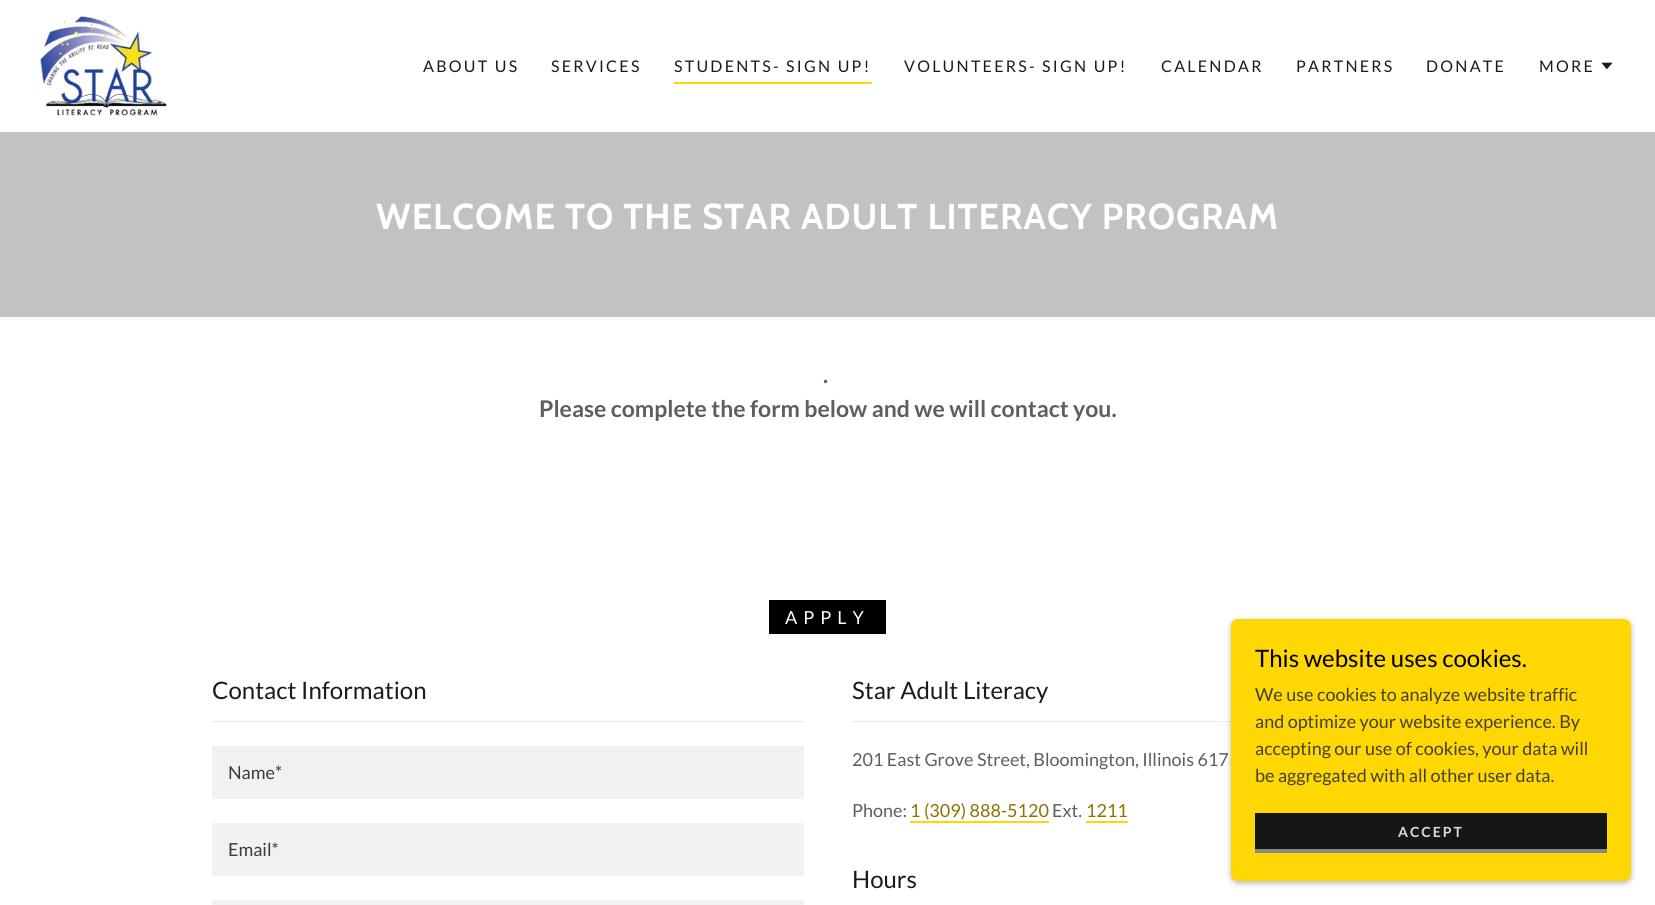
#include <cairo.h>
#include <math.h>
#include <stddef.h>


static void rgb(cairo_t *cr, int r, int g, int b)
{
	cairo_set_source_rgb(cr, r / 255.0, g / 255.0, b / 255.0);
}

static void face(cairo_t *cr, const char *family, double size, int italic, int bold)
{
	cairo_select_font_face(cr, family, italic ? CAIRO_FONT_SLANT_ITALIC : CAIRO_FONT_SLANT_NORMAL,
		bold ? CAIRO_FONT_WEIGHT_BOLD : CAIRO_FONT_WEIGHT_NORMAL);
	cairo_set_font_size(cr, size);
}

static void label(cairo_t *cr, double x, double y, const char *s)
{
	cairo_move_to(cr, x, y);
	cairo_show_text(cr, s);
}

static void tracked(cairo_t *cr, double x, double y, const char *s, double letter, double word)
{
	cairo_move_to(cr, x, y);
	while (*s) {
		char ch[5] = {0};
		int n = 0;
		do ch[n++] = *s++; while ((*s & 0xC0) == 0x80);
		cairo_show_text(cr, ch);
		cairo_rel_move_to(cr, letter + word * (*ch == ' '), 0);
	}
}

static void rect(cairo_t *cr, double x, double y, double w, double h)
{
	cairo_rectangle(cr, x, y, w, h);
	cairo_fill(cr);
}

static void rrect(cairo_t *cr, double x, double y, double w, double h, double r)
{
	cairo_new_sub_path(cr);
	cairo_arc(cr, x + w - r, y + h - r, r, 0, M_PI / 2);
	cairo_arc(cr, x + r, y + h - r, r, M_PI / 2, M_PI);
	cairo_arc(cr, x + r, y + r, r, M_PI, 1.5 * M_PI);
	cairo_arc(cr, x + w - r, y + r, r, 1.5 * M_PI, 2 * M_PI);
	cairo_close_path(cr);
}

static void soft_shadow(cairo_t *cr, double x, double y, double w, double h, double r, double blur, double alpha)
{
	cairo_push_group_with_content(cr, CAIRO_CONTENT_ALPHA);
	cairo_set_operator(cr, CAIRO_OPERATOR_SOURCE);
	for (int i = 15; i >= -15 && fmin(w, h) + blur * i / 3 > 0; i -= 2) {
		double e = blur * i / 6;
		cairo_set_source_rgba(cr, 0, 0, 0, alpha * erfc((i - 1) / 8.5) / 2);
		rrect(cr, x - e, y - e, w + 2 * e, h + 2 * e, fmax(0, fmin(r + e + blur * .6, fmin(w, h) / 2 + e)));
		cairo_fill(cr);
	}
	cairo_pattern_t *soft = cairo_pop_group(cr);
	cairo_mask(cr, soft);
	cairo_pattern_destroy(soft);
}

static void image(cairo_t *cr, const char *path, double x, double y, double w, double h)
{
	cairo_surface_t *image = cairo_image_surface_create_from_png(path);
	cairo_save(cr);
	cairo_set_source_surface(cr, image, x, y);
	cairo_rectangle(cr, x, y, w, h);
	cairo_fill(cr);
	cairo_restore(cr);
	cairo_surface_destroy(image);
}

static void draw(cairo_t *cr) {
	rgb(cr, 194, 194, 194);
	cairo_paint(cr);
	rgb(cr, 255, 255, 255);
	rect(cr, 0, 0, 1655, 132);
	image(cr, "image0.png", 40, 16, 127, 100);
	face(cr, "Lato", 16, 0, 0);
	rgb(cr, 27, 27, 27);
	tracked(cr, 423, 72, "ABOUT US", 2.25, 0);
	tracked(cr, 551, 72, "SERVICES", 2.25, 0);
	rgb(cr, 255, 215, 3);
	rect(cr, 674, 82, 198, 2);
	rgb(cr, 27, 27, 27);
	tracked(cr, 674, 72, "STUDENTS- SIGN UP!", 2.25, 0);
	tracked(cr, 904, 72, "VOLUNTEERS- SIGN UP!", 2.25, 0);
	tracked(cr, 1161, 72, "CALENDAR", 2.25, 0);
	tracked(cr, 1296, 72, "PARTNERS", 2.25, 0);
	tracked(cr, 1426, 72, "DONATE", 2.25, 0);
	tracked(cr, 1539, 72, "MORE", 2.25, 0);
	image(cr, "image1.png", 1601, 62, 12, 8);
	face(cr, "Cabin", 36, 0, 1);
	rgb(cr, 255, 255, 255);
	tracked(cr, 376, 229, "WELCOME TO THE STAR ADULT LITERACY PROGRAM", 1, 0);
	rect(cr, 0, 317, 1655, 588);
	face(cr, "Lato", 23, 0, 1);
	rgb(cr, 94, 94, 94);
	label(cr, 823, 383, ".");
	label(cr, 539, 417, "Please complete the form below and we will contact you.");
	rgb(cr, 0, 0, 0);
	rect(cr, 769, 600, 117, 34);
	face(cr, "Lato", 18, 0, 0);
	rgb(cr, 255, 255, 255);
	tracked(cr, 785, 624, "APPLY", 6, 0);
	rgb(cr, 235, 235, 235);
	rect(cr, 212, 721, 592, 1);
	face(cr, "Lato", 24, 0, 0);
	rgb(cr, 27, 27, 27);
	label(cr, 212, 699, "Contact Information");
	rgb(cr, 241, 241, 241);
	rect(cr, 212, 746, 592, 53);
	face(cr, "Lato", 18, 0, 0);
	rgb(cr, 59, 59, 59);
	label(cr, 228, 779, "Name*");
	rgb(cr, 241, 241, 241);
	rect(cr, 212, 823, 592, 53);
	rgb(cr, 59, 59, 59);
	label(cr, 228, 856, "Email*");
	rgb(cr, 241, 241, 241);
	rect(cr, 212, 900, 592, 5);
	rgb(cr, 235, 235, 235);
	rect(cr, 852, 721, 379, 1);
	face(cr, "Lato", 24, 0, 0);
	rgb(cr, 27, 27, 27);
	label(cr, 852, 699, "Star Adult Literacy");
	face(cr, "Lato", 18, 0, 0);
	rgb(cr, 94, 94, 94);
	label(cr, 852, 766, "201 East Grove Street, Bloomington, Illinois 617");
	label(cr, 852, 817, "Phone:");
	rgb(cr, 138, 116, 1);
	label(cr, 910, 817, "1 (309) 888-5120");
	rgb(cr, 255, 215, 3);
	rect(cr, 910, 821, 139, 2);
	rgb(cr, 94, 94, 94);
	label(cr, 1052, 817, "Ext.");
	rgb(cr, 138, 116, 1);
	label(cr, 1086, 817, "1211");
	rgb(cr, 255, 215, 3);
	rect(cr, 1086, 821, 42, 2);
	face(cr, "Lato", 24, 0, 0);
	rgb(cr, 27, 27, 27);
	label(cr, 852, 888, "Hours");
	rgb(cr, 0, 0, 0);
	soft_shadow(cr, 1231, 621, 400, 262, 7, 3, 0.3);
	rgb(cr, 255, 215, 3);
	rrect(cr, 1231, 619, 400, 262, 7);
	cairo_fill(cr);
	rgb(cr, 0, 0, 0);
	label(cr, 1255, 667, "This website uses cookies.");
	face(cr, "Lato", 18, 0, 0);
	rgb(cr, 68, 63, 51);
	label(cr, 1255, 701, "We use cookies to analyze website traffic");
	label(cr, 1255, 728, "and optimize your website experience. By");
	label(cr, 1255, 755, "accepting our use of cookies, your data will");
	label(cr, 1255, 782, "be aggregated with all other user data.");
	rgb(cr, 22, 22, 22);
	rect(cr, 1255, 813, 352, 36);
	rgb(cr, 137, 137, 137);
	rect(cr, 1255, 849, 352, 4);
	face(cr, "Lato", 14, 0, 1);
	rgb(cr, 219, 219, 219);
	tracked(cr, 1398, 837, "ACCEPT", 2, 0);
}

int main(void) {
	cairo_surface_t *surface = cairo_image_surface_create(CAIRO_FORMAT_RGB24, 1655, 905);
	cairo_t *cr = cairo_create(surface);
	cairo_font_options_t *options = cairo_font_options_create();
	cairo_font_options_set_hint_metrics(options, CAIRO_HINT_METRICS_OFF);
	cairo_font_options_set_hint_style(options, CAIRO_HINT_STYLE_NONE);
	cairo_set_font_options(cr, options);
	cairo_set_miter_limit(cr, 4);
	draw(cr);
	cairo_surface_write_to_png(surface, "render.png");
	cairo_font_options_destroy(options);
	cairo_destroy(cr);
	cairo_surface_destroy(surface);
	return 0;
}
